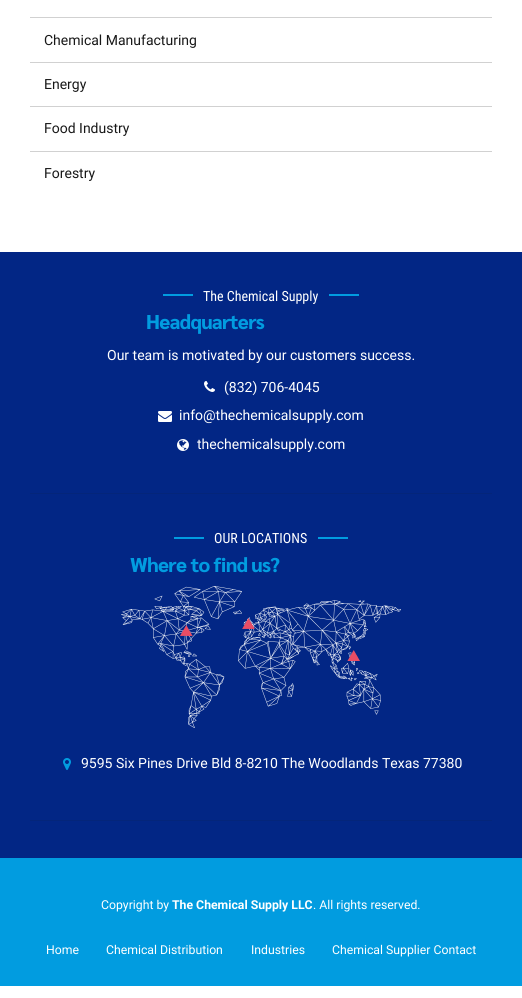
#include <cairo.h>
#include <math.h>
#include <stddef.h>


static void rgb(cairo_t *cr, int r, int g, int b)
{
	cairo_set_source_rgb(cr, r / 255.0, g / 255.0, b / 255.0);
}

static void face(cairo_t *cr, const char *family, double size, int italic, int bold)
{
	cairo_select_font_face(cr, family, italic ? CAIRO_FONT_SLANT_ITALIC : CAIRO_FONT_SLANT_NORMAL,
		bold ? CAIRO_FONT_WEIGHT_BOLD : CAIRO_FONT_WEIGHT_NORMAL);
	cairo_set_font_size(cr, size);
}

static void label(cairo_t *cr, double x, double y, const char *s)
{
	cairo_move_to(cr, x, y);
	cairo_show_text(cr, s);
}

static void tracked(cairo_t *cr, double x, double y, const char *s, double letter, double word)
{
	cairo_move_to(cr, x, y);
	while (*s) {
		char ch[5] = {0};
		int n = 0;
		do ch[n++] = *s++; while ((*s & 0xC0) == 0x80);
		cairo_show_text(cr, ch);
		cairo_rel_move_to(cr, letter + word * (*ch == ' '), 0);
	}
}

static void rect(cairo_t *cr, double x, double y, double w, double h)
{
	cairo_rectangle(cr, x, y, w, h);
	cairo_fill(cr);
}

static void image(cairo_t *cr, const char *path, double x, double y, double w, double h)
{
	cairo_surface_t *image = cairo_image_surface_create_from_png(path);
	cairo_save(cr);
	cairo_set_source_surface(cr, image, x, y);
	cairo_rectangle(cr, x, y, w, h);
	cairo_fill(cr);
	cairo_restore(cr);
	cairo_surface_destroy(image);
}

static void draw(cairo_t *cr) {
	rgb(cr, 255, 255, 255);
	cairo_paint(cr);
	rgb(cr, 209, 209, 209);
	rect(cr, 30, 17, 462, 1);
	rect(cr, 30, 62, 462, 1);
	face(cr, "Roboto", 14, 0, 0);
	rgb(cr, 24, 24, 24);
	label(cr, 44, 45, "Chemical Manufacturing");
	rgb(cr, 209, 209, 209);
	rect(cr, 30, 106, 462, 1);
	rgb(cr, 24, 24, 24);
	label(cr, 44, 89, "Energy");
	rgb(cr, 209, 209, 209);
	rect(cr, 30, 151, 462, 1);
	rgb(cr, 24, 24, 24);
	label(cr, 44, 133, "Food Industry");
	label(cr, 44, 178, "Forestry");
	rgb(cr, 2, 38, 133);
	rect(cr, 0, 252, 522, 606);
	rgb(cr, 1, 156, 224);
	rect(cr, 163, 294, 30, 2);
	face(cr, "Roboto Condensed", 14, 0, 0);
	rgb(cr, 255, 255, 255);
	label(cr, 203, 301, "The Chemical Supply");
	rgb(cr, 1, 156, 224);
	rect(cr, 329, 294, 30, 2);
	face(cr, "Sarabun ExtraBold", 20, 0, 0);
	tracked(cr, 146, 329, "Headquarters", -0.6, 0);
	face(cr, "Roboto", 14, 0, 0);
	rgb(cr, 255, 255, 255);
	label(cr, 107, 360, "Our team is motivated by our customers success.");
	image(cr, "image0.png", 204, 381, 11, 11);
	label(cr, 224, 392, "(832) 706-4045");
	image(cr, "image1.png", 158, 411, 14, 11);
	label(cr, 179, 420, "info@thechemicalsupply.com");
	image(cr, "image2.png", 177, 439, 12, 12);
	label(cr, 197, 449, "thechemicalsupply.com");
	rgb(cr, 4, 37, 122);
	rect(cr, 30, 493, 462, 1);
	rgb(cr, 1, 156, 224);
	rect(cr, 174, 537, 30, 2);
	face(cr, "Roboto Condensed", 14, 0, 0);
	rgb(cr, 255, 255, 255);
	label(cr, 214, 543, "OUR LOCATIONS");
	rgb(cr, 1, 156, 224);
	rect(cr, 318, 537, 30, 2);
	face(cr, "Sarabun ExtraBold", 20, 0, 0);
	tracked(cr, 130, 572, "Where to find us?", -0.6, 0);
	image(cr, "image3.png", 121, 586, 280, 142);
	image(cr, "image4.png", 63, 758, 8, 12);
	face(cr, "Roboto", 14, 0, 0);
	rgb(cr, 255, 255, 255);
	label(cr, 81, 768, "9595 Six Pines Drive Bld 8-8210 The Woodlands Texas 77380");
	rgb(cr, 4, 37, 122);
	rect(cr, 30, 820, 462, 1);
	rgb(cr, 1, 156, 224);
	rect(cr, 0, 858, 522, 128);
	face(cr, "Roboto", 12.25, 0, 0);
	rgb(cr, 255, 255, 255);
	label(cr, 101, 909, "Copyright by");
	face(cr, "Roboto", 12.25, 0, 1);
	label(cr, 172, 909, "The Chemical Supply LLC");
	face(cr, "Roboto", 12.25, 0, 0);
	label(cr, 313, 909, ". All rights reserved.");
	label(cr, 46, 954, "Home");
	label(cr, 106, 954, "Chemical Distribution");
	label(cr, 251, 954, "Industries");
	label(cr, 332, 954, "Chemical Supplier Contact");
}

int main(void) {
	cairo_surface_t *surface = cairo_image_surface_create(CAIRO_FORMAT_RGB24, 522, 998);
	cairo_t *cr = cairo_create(surface);
	cairo_font_options_t *options = cairo_font_options_create();
	cairo_font_options_set_hint_metrics(options, CAIRO_HINT_METRICS_OFF);
	cairo_font_options_set_hint_style(options, CAIRO_HINT_STYLE_NONE);
	cairo_set_font_options(cr, options);
	cairo_set_miter_limit(cr, 4);
	draw(cr);
	cairo_surface_write_to_png(surface, "render.png");
	cairo_font_options_destroy(options);
	cairo_destroy(cr);
	cairo_surface_destroy(surface);
	return 0;
}
